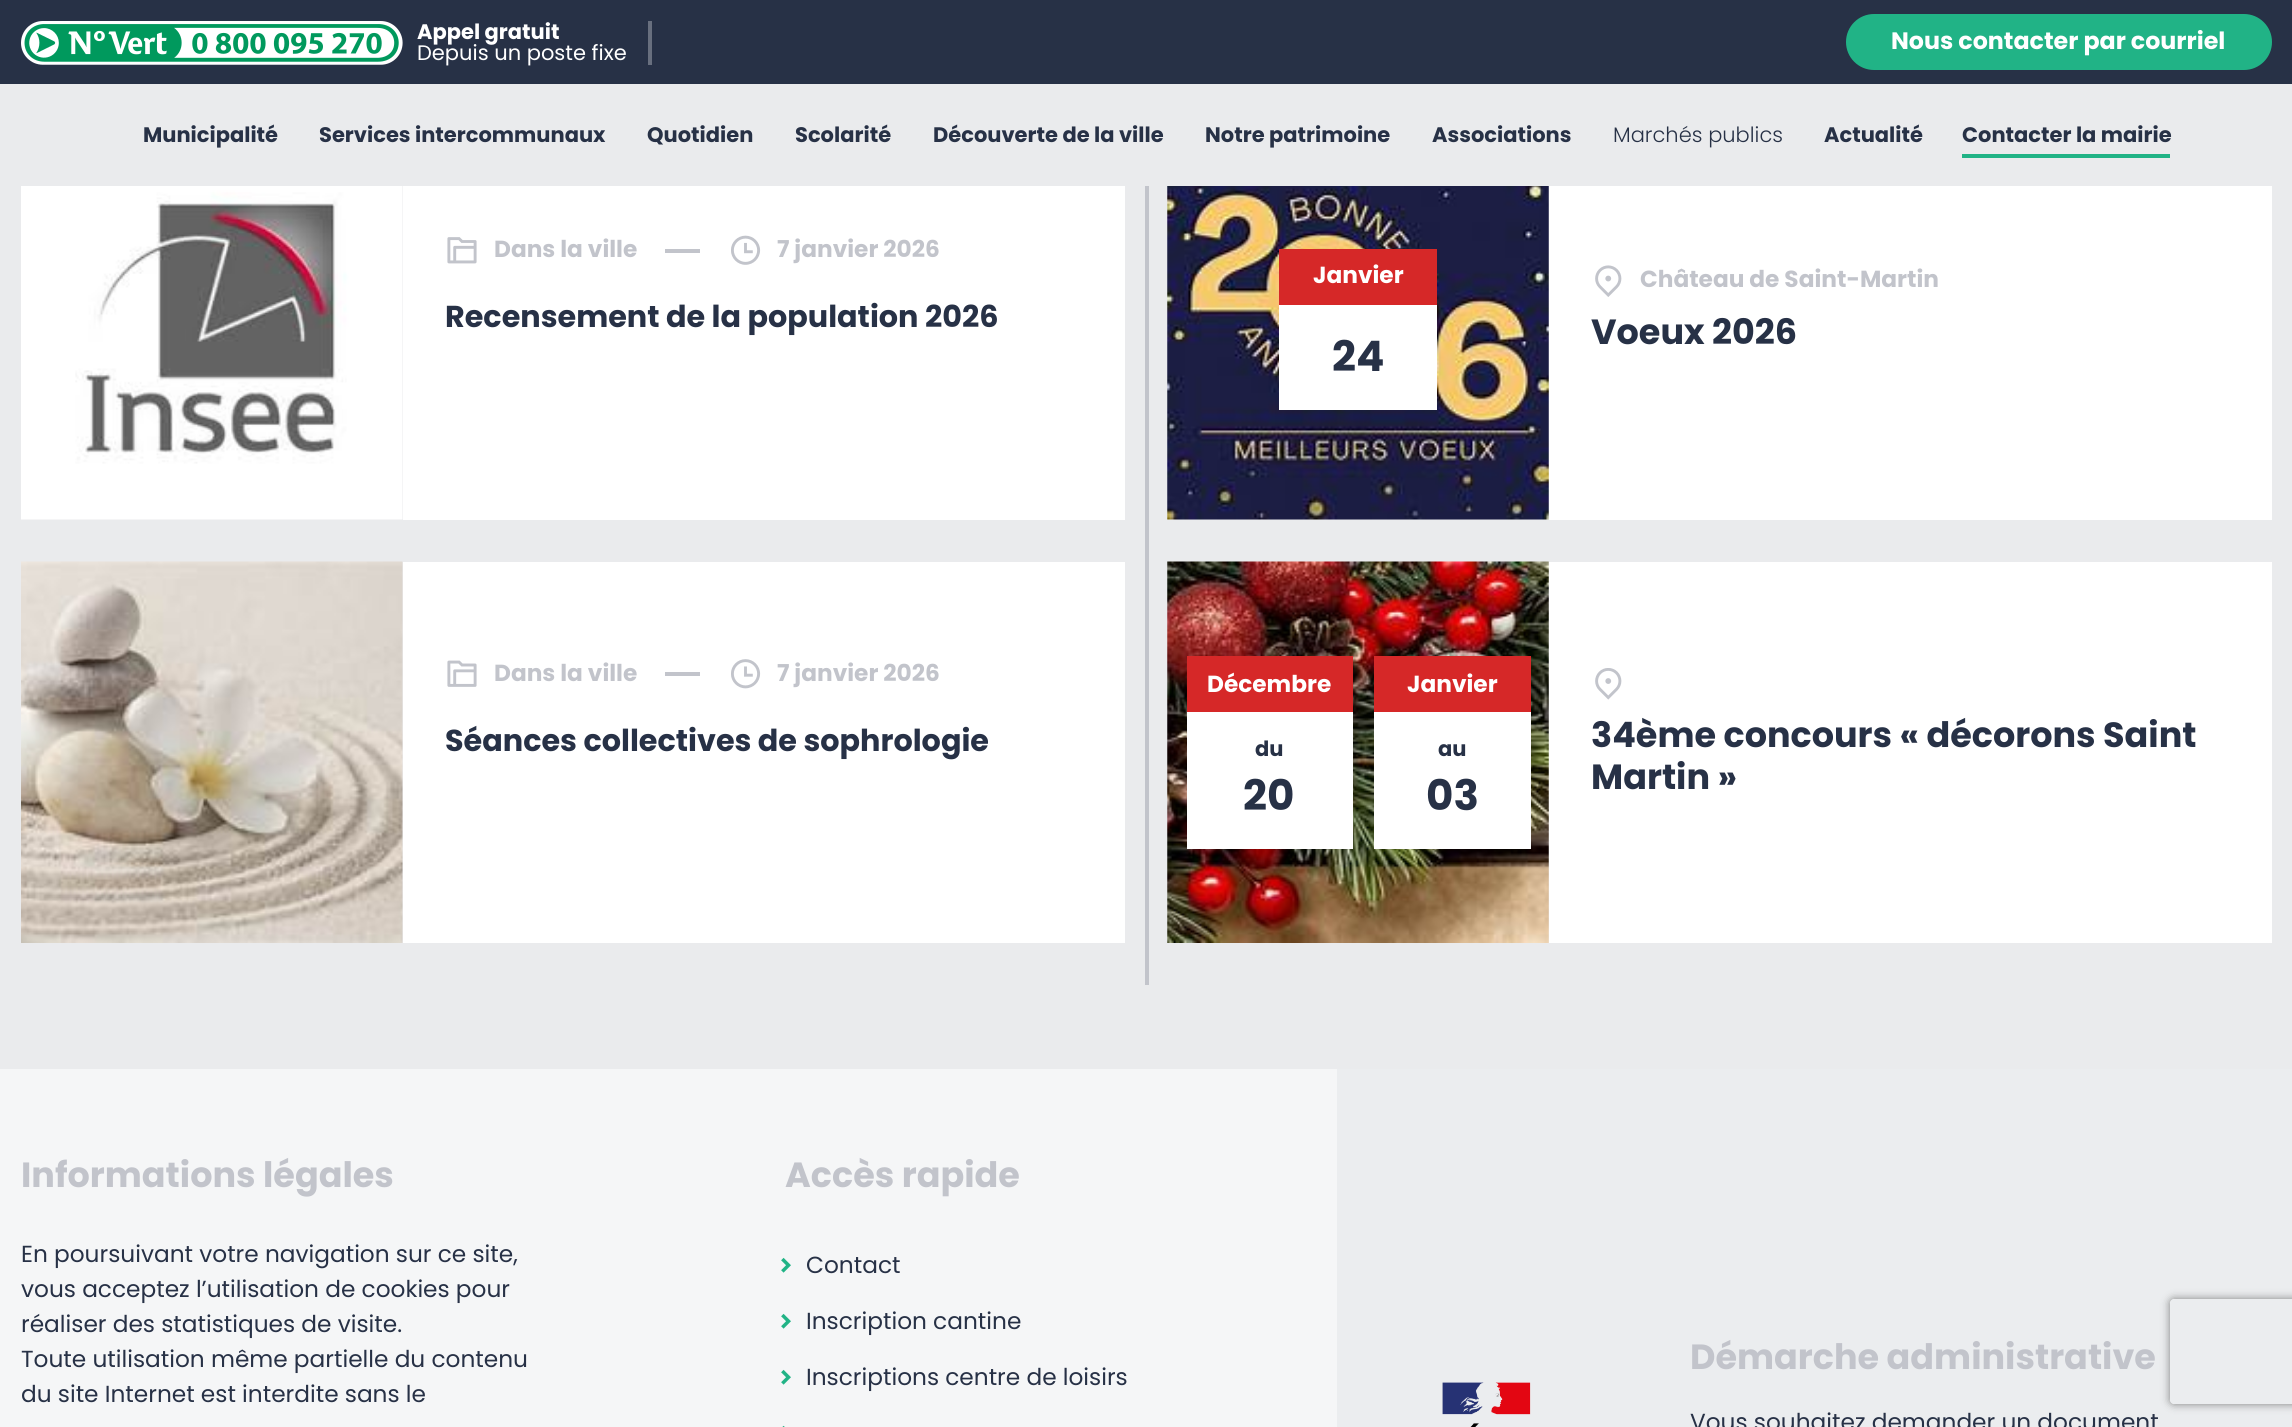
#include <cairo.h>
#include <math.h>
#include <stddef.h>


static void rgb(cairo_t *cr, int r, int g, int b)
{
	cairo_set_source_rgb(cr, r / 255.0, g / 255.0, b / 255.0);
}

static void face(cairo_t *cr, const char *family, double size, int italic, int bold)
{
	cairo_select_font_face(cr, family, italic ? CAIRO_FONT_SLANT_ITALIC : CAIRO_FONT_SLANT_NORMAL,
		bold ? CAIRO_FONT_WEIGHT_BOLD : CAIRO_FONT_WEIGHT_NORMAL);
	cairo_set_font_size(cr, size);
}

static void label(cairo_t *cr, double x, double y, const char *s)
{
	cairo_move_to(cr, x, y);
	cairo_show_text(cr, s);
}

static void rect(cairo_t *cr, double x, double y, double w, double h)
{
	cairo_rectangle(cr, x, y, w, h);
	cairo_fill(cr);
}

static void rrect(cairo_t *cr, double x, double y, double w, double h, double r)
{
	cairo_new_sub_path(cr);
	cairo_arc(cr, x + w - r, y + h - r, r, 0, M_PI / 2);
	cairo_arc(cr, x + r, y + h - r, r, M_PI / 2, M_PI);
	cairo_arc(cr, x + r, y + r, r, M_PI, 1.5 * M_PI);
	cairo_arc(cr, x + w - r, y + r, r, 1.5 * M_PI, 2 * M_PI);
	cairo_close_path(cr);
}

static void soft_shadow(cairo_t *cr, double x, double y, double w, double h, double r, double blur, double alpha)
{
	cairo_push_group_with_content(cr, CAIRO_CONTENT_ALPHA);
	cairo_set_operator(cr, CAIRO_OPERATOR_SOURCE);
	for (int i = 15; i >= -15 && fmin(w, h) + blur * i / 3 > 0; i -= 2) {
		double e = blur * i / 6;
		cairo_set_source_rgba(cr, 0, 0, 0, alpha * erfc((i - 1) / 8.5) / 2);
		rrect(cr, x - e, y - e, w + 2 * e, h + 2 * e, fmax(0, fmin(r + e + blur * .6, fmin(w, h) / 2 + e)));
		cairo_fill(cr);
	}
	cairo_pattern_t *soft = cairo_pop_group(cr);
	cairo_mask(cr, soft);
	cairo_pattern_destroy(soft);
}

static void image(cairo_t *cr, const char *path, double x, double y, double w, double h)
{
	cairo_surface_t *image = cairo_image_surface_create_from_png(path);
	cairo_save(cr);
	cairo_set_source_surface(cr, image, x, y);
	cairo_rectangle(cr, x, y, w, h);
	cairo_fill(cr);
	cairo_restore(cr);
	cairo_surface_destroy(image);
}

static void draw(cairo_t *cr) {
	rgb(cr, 245, 246, 247);
	cairo_paint(cr);
	rgb(cr, 39, 49, 70);
	rect(cr, 0, 0, 2292, 84);
	rgb(cr, 104, 111, 126);
	rect(cr, 648, 21, 4, 44);
	image(cr, "image0.png", 21, 21, 382, 44);
	face(cr, "Poppins", 21, 0, 1);
	rgb(cr, 255, 255, 255);
	label(cr, 417, 39, "Appel gratuit");
	face(cr, "Poppins", 21, 0, 0);
	label(cr, 417, 60, "Depuis un poste fixe");
	rgb(cr, 33, 179, 134);
	rrect(cr, 1848, 16, 422, 52, 26);
	cairo_fill_preserve(cr);
	cairo_set_line_width(cr, 4);
	cairo_stroke(cr);
	face(cr, "Poppins", 23.75, 0, 1);
	rgb(cr, 255, 255, 255);
	label(cr, 1891, 49, "Nous contacter par courriel");
	rgb(cr, 234, 235, 237);
	rect(cr, 0, 84, 2292, 985);
	face(cr, "Poppins", 21, 0, 1);
	rgb(cr, 39, 49, 70);
	label(cr, 143, 142, "Municipalité");
	label(cr, 319, 142, "Services intercommunaux");
	label(cr, 647, 142, "Quotidien");
	label(cr, 795, 142, "Scolarité");
	label(cr, 933, 142, "Découverte de la ville");
	label(cr, 1205, 142, "Notre patrimoine");
	label(cr, 1432, 142, "Associations");
	face(cr, "Poppins Light", 21, 0, 0);
	label(cr, 1613, 142, "Marchés publics");
	face(cr, "Poppins", 21, 0, 1);
	label(cr, 1824, 142, "Actualité");
	label(cr, 1962, 142, "Contacter la mairie");
	rgb(cr, 33, 179, 134);
	rect(cr, 1962, 154, 208, 4);
	rgb(cr, 194, 196, 203);
	rect(cr, 1145, 186, 4, 799);
	image(cr, "image1.png", 21, 186, 382, 334);
	rgb(cr, 255, 255, 255);
	rect(cr, 403, 186, 722, 334);
	image(cr, "image2.png", 447, 237, 30, 27);
	face(cr, "Poppins", 23.25, 0, 1);
	rgb(cr, 194, 196, 203);
	label(cr, 494, 257, "Dans la ville");
	rect(cr, 665, 249, 35, 4);
	image(cr, "image3.png", 731, 235, 30, 30);
	label(cr, 777, 257, "7 janvier 2026");
	face(cr, "Poppins", 30.25, 0, 1);
	rgb(cr, 39, 49, 70);
	label(cr, 445, 327, "Recensement de la population 2026");
	image(cr, "image4.png", 21, 561, 382, 382);
	rgb(cr, 255, 255, 255);
	rect(cr, 403, 562, 722, 381);
	image(cr, "image5.png", 447, 660, 30, 27);
	face(cr, "Poppins", 23.25, 0, 1);
	rgb(cr, 194, 196, 203);
	label(cr, 494, 681, "Dans la ville");
	rect(cr, 665, 672, 35, 4);
	image(cr, "image6.png", 731, 659, 30, 30);
	label(cr, 777, 681, "7 janvier 2026");
	face(cr, "Poppins", 30.25, 0, 1);
	rgb(cr, 39, 49, 70);
	label(cr, 445, 751, "Séances collectives de sophrologie");
	image(cr, "image7.png", 1167, 186, 382, 334);
	rgb(cr, 0, 0, 0);
	soft_shadow(cr, 1279, 313, 158, 161, 0, 25.5, 0.04);
	rgb(cr, 214, 40, 40);
	rect(cr, 1279, 249, 158, 56);
	face(cr, "Poppins", 23.25, 0, 1);
	rgb(cr, 255, 255, 255);
	label(cr, 1313, 283, "Janvier");
	rect(cr, 1279, 305, 158, 105);
	face(cr, "Poppins", 42, 0, 1);
	rgb(cr, 39, 49, 70);
	label(cr, 1332, 371, "24");
	rgb(cr, 255, 255, 255);
	rect(cr, 1549, 186, 723, 334);
	image(cr, "image8.png", 1595, 265, 27, 32);
	face(cr, "Poppins", 23.25, 0, 1);
	rgb(cr, 194, 196, 203);
	label(cr, 1640, 287, "Château de Saint-Martin");
	face(cr, "Poppins", 35, 0, 1);
	rgb(cr, 39, 49, 70);
	label(cr, 1591, 344, "Voeux 2026");
	image(cr, "image9.png", 1167, 561, 382, 382);
	rgb(cr, 214, 40, 40);
	rect(cr, 1187, 656, 166, 56);
	face(cr, "Poppins", 23.25, 0, 1);
	rgb(cr, 255, 255, 255);
	label(cr, 1207, 692, "Décembre");
	rect(cr, 1187, 712, 166, 137);
	face(cr, "Poppins", 21, 0, 1);
	rgb(cr, 39, 49, 70);
	label(cr, 1255, 756, "du");
	face(cr, "Poppins", 42, 0, 1);
	label(cr, 1243, 810, "20");
	rgb(cr, 214, 40, 40);
	rect(cr, 1374, 656, 157, 56);
	face(cr, "Poppins", 23.25, 0, 1);
	rgb(cr, 255, 255, 255);
	label(cr, 1407, 692, "Janvier");
	rect(cr, 1374, 712, 157, 137);
	face(cr, "Poppins", 21, 0, 1);
	rgb(cr, 39, 49, 70);
	label(cr, 1438, 756, "au");
	face(cr, "Poppins", 42, 0, 1);
	label(cr, 1426, 810, "03");
	rgb(cr, 255, 255, 255);
	rect(cr, 1549, 562, 723, 381);
	image(cr, "image10.png", 1595, 668, 27, 32);
	face(cr, "Poppins", 35, 0, 1);
	rgb(cr, 39, 49, 70);
	label(cr, 1591, 747, "34ème concours « décorons Saint");
	label(cr, 1591, 789, "Martin »");
	rgb(cr, 194, 196, 203);
	label(cr, 21, 1187, "Informations légales");
	face(cr, "Poppins", 23.25, 0, 0);
	rgb(cr, 39, 49, 70);
	label(cr, 21, 1262, "En poursuivant votre navigation sur ce site,");
	label(cr, 21, 1297, "vous acceptez l’utilisation de cookies pour");
	label(cr, 21, 1332, "réaliser des statistiques de visite.");
	label(cr, 21, 1367, "Toute utilisation même partielle du contenu");
	label(cr, 21, 1402, "du site Internet est interdite sans le");
	face(cr, "Poppins", 35, 0, 1);
	rgb(cr, 194, 196, 203);
	label(cr, 785, 1187, "Accès rapide");
	image(cr, "image11.png", 781, 1257, 10, 16);
	face(cr, "Poppins", 23.25, 0, 0);
	rgb(cr, 39, 49, 70);
	label(cr, 806, 1273, "Contact");
	image(cr, "image11.png", 781, 1313, 10, 16);
	label(cr, 806, 1329, "Inscription cantine");
	image(cr, "image11.png", 781, 1369, 10, 16);
	label(cr, 806, 1385, "Inscriptions centre de loisirs");
	image(cr, "image12.png", 782, 1425, 3, 2);
	rgb(cr, 235, 237, 239);
	rect(cr, 1337, 1069, 955, 358);
	image(cr, "image13.png", 1442, 1382, 89, 45);
	face(cr, "Poppins", 35, 0, 1);
	rgb(cr, 194, 196, 203);
	label(cr, 1690, 1369, "Démarche administrative");
	face(cr, "Poppins", 23.25, 0, 0);
	rgb(cr, 39, 49, 70);
	label(cr, 1690, 1430, "Vous souhaitez demander un document");
	cairo_save(cr);
	cairo_set_fill_rule(cr, CAIRO_FILL_RULE_EVEN_ODD);
	cairo_new_path(cr);
	cairo_move_to(cr, 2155, 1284);
	cairo_line_to(cr, 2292, 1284);
	cairo_line_to(cr, 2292, 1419);
	cairo_line_to(cr, 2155, 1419);
	cairo_close_path(cr);
	cairo_move_to(cr, 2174, 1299);
	cairo_line_to(cr, 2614, 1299);
	cairo_curve_to(cr, 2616, 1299, 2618, 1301, 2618, 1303);
	cairo_line_to(cr, 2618, 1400);
	cairo_curve_to(cr, 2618, 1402, 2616, 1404, 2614, 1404);
	cairo_line_to(cr, 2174, 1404);
	cairo_curve_to(cr, 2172, 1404, 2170, 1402, 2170, 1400);
	cairo_line_to(cr, 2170, 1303);
	cairo_curve_to(cr, 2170, 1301, 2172, 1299, 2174, 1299);
	cairo_close_path(cr);
	cairo_clip(cr);
	rgb(cr, 128, 128, 128);
	soft_shadow(cr, 2170, 1299, 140, 105, 4, 4.5, 1);
	cairo_restore(cr);
}

int main(void) {
	cairo_surface_t *surface = cairo_image_surface_create(CAIRO_FORMAT_RGB24, 2292, 1427);
	cairo_t *cr = cairo_create(surface);
	cairo_font_options_t *options = cairo_font_options_create();
	cairo_font_options_set_hint_metrics(options, CAIRO_HINT_METRICS_OFF);
	cairo_font_options_set_hint_style(options, CAIRO_HINT_STYLE_NONE);
	cairo_set_font_options(cr, options);
	cairo_set_miter_limit(cr, 4);
	draw(cr);
	cairo_surface_write_to_png(surface, "render.png");
	cairo_font_options_destroy(options);
	cairo_destroy(cr);
	cairo_surface_destroy(surface);
	return 0;
}
